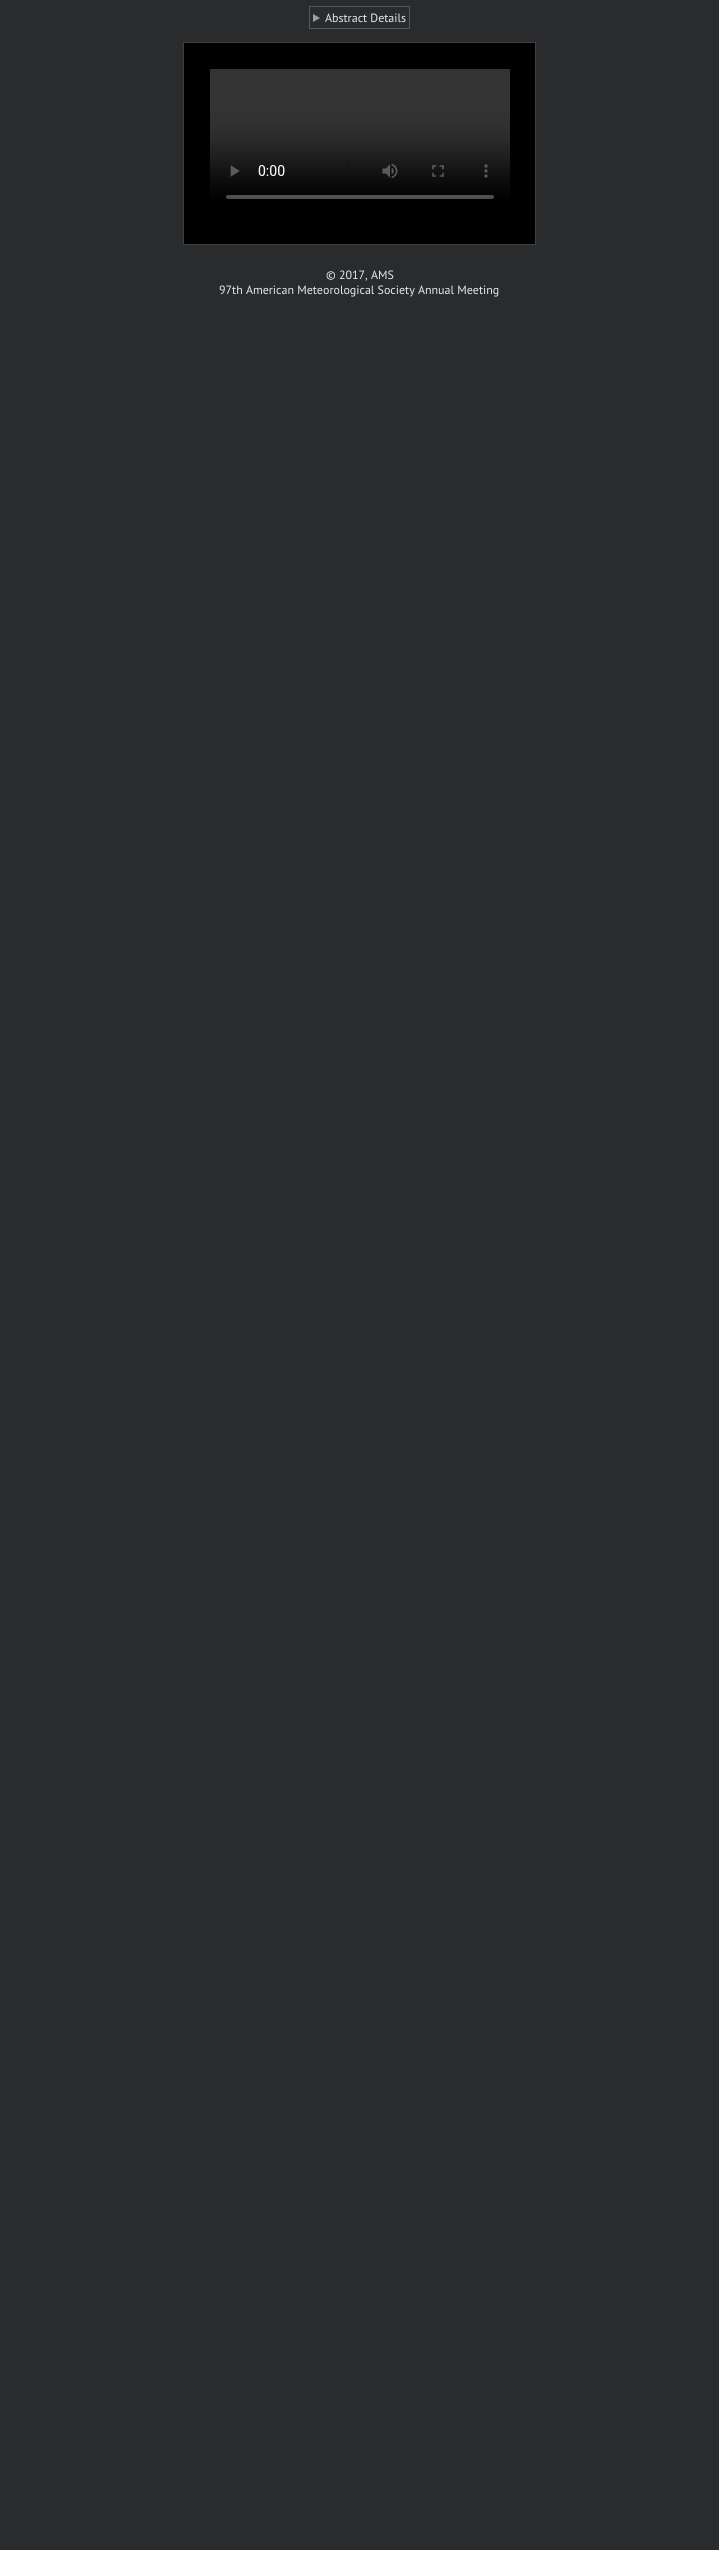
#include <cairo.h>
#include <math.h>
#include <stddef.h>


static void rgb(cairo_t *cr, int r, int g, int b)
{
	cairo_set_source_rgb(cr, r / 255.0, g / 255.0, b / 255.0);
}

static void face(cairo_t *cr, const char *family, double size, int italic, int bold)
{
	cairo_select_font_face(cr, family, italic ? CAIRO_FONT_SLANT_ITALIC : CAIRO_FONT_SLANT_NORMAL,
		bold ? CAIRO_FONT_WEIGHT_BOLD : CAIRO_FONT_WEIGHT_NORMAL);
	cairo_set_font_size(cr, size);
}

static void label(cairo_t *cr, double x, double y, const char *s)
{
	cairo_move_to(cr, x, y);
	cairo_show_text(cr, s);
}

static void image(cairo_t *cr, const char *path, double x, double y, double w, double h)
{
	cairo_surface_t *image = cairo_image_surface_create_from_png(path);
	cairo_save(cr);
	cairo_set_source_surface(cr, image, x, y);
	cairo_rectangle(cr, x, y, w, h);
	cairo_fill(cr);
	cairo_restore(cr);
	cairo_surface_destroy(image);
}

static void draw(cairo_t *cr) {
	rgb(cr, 42, 43, 44);
	cairo_paint(cr);
	cairo_rectangle(cr, 309.5, 6.5, 100, 22);
	rgb(cr, 85, 86, 89);
	cairo_set_line_width(cr, 1);
	cairo_stroke(cr);
	rgb(cr, 149, 158, 171);
	cairo_new_path(cr);
	cairo_move_to(cr, 313, 22);
	cairo_line_to(cr, 313, 14);
	cairo_line_to(cr, 320, 18);
	cairo_close_path(cr);
	cairo_fill(cr);
	face(cr, "PT Sans", 12, 0, 0);
	rgb(cr, 231, 233, 235);
	label(cr, 325, 22, "Abstract Details");
	rgb(cr, 0, 0, 0);
	cairo_rectangle(cr, 183.5, 42.5, 352, 202);
	cairo_fill_preserve(cr);
	rgb(cr, 63, 64, 65);
	cairo_stroke(cr);
	image(cr, "image0.png", 210, 69, 300, 130);
	rgb(cr, 231, 233, 235);
	label(cr, 326, 279, "© 2017, AMS");
	label(cr, 219, 294, "97th American Meteorological Society Annual Meeting");
}

int main(void) {
	cairo_surface_t *surface = cairo_image_surface_create(CAIRO_FORMAT_RGB24, 719, 2550);
	cairo_t *cr = cairo_create(surface);
	cairo_font_options_t *options = cairo_font_options_create();
	cairo_font_options_set_hint_metrics(options, CAIRO_HINT_METRICS_OFF);
	cairo_font_options_set_hint_style(options, CAIRO_HINT_STYLE_NONE);
	cairo_set_font_options(cr, options);
	cairo_set_miter_limit(cr, 4);
	draw(cr);
	cairo_surface_write_to_png(surface, "render.png");
	cairo_font_options_destroy(options);
	cairo_destroy(cr);
	cairo_surface_destroy(surface);
	return 0;
}
